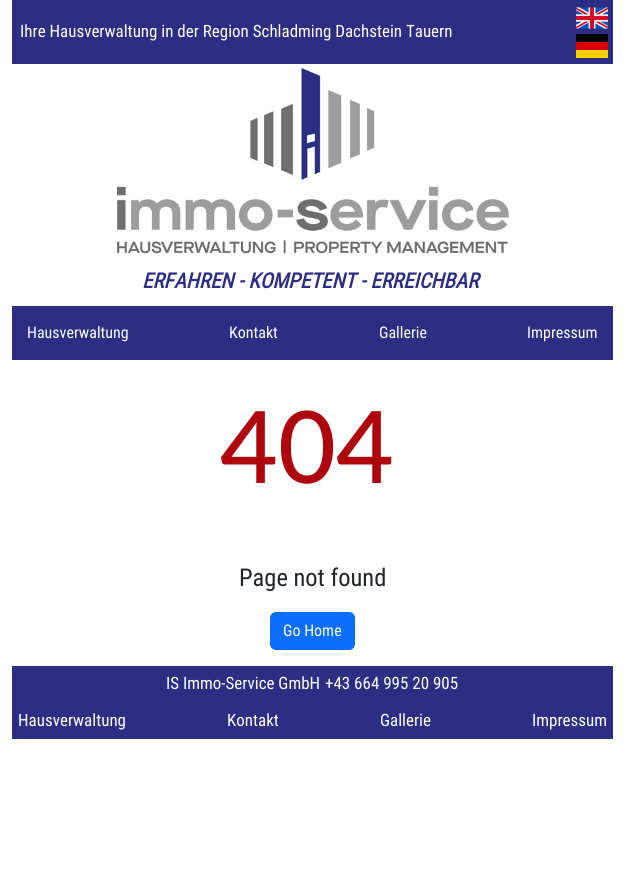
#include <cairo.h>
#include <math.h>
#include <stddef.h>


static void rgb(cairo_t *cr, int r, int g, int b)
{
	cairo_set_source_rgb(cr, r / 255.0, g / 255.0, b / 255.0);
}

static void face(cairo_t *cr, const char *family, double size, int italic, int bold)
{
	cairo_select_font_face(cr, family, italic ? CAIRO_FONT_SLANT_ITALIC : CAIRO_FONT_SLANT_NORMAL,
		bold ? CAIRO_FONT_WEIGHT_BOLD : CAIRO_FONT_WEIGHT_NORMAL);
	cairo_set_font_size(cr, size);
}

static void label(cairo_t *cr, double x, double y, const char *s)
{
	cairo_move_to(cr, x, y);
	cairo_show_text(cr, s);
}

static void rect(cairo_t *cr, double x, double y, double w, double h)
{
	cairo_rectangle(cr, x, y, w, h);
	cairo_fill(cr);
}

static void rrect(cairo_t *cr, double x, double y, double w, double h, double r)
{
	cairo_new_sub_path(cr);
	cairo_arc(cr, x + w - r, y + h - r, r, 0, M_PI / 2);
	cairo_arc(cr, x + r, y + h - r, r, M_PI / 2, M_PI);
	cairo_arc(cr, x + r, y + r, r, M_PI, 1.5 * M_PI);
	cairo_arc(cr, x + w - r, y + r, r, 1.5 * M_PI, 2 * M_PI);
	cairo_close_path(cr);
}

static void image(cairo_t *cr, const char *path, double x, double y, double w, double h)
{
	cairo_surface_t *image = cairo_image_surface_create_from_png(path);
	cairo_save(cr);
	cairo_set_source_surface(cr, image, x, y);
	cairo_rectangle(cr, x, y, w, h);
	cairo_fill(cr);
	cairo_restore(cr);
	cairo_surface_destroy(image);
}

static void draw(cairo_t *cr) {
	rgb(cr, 255, 255, 255);
	cairo_paint(cr);
	rgb(cr, 44, 46, 131);
	rect(cr, 12, 0, 601, 64);
	face(cr, "Roboto Condensed", 17, 0, 0);
	rgb(cr, 255, 255, 255);
	label(cr, 20, 37, "Ihre Hausverwaltung in der Region Schladming Dachstein Tauern");
	image(cr, "image0.png", 576, 7, 32, 22);
	image(cr, "image1.png", 576, 34, 32, 24);
	image(cr, "image2.png", 117, 68, 392, 186);
	face(cr, "Roboto Condensed", 21, 1, 1);
	rgb(cr, 44, 46, 131);
	label(cr, 142, 288, "ERFAHREN - KOMPETENT - ERREICHBAR");
	rect(cr, 12, 306, 601, 54);
	face(cr, "Roboto Condensed", 16, 0, 0);
	rgb(cr, 255, 255, 255);
	label(cr, 27, 338, "Hausverwaltung");
	label(cr, 229, 338, "Kontakt");
	label(cr, 379, 338, "Gallerie");
	label(cr, 527, 338, "Impressum");
	face(cr, "Lato Medium", 100, 0, 0);
	rgb(cr, 173, 6, 13);
	label(cr, 220, 483, "404");
	face(cr, "Roboto Condensed", 24.5, 0, 0);
	rgb(cr, 33, 37, 41);
	label(cr, 239, 586, "Page not found");
	rgb(cr, 13, 110, 253);
	rrect(cr, 270.5, 612.5, 84, 37, 5.5);
	cairo_fill_preserve(cr);
	cairo_set_line_width(cr, 1);
	cairo_stroke(cr);
	face(cr, "Roboto Condensed", 16, 0, 0);
	rgb(cr, 255, 255, 255);
	label(cr, 283, 636, "Go Home");
	rgb(cr, 44, 46, 131);
	rect(cr, 12, 666, 601, 73);
	face(cr, "Roboto Condensed", 17, 0, 0);
	rgb(cr, 255, 255, 255);
	label(cr, 166, 689, "IS Immo-Service GmbH");
	label(cr, 325, 689, "+43 664 995 20 905");
	label(cr, 18, 726, "Hausverwaltung");
	label(cr, 227, 726, "Kontakt");
	label(cr, 380, 726, "Gallerie");
	label(cr, 532, 726, "Impressum");
}

int main(void) {
	cairo_surface_t *surface = cairo_image_surface_create(CAIRO_FORMAT_RGB24, 625, 874);
	cairo_t *cr = cairo_create(surface);
	cairo_font_options_t *options = cairo_font_options_create();
	cairo_font_options_set_hint_metrics(options, CAIRO_HINT_METRICS_OFF);
	cairo_font_options_set_hint_style(options, CAIRO_HINT_STYLE_NONE);
	cairo_set_font_options(cr, options);
	cairo_set_miter_limit(cr, 4);
	draw(cr);
	cairo_surface_write_to_png(surface, "render.png");
	cairo_font_options_destroy(options);
	cairo_destroy(cr);
	cairo_surface_destroy(surface);
	return 0;
}
